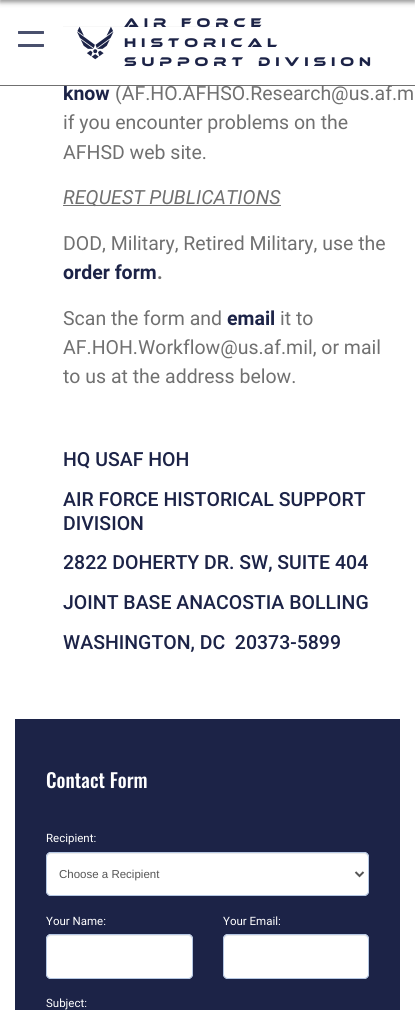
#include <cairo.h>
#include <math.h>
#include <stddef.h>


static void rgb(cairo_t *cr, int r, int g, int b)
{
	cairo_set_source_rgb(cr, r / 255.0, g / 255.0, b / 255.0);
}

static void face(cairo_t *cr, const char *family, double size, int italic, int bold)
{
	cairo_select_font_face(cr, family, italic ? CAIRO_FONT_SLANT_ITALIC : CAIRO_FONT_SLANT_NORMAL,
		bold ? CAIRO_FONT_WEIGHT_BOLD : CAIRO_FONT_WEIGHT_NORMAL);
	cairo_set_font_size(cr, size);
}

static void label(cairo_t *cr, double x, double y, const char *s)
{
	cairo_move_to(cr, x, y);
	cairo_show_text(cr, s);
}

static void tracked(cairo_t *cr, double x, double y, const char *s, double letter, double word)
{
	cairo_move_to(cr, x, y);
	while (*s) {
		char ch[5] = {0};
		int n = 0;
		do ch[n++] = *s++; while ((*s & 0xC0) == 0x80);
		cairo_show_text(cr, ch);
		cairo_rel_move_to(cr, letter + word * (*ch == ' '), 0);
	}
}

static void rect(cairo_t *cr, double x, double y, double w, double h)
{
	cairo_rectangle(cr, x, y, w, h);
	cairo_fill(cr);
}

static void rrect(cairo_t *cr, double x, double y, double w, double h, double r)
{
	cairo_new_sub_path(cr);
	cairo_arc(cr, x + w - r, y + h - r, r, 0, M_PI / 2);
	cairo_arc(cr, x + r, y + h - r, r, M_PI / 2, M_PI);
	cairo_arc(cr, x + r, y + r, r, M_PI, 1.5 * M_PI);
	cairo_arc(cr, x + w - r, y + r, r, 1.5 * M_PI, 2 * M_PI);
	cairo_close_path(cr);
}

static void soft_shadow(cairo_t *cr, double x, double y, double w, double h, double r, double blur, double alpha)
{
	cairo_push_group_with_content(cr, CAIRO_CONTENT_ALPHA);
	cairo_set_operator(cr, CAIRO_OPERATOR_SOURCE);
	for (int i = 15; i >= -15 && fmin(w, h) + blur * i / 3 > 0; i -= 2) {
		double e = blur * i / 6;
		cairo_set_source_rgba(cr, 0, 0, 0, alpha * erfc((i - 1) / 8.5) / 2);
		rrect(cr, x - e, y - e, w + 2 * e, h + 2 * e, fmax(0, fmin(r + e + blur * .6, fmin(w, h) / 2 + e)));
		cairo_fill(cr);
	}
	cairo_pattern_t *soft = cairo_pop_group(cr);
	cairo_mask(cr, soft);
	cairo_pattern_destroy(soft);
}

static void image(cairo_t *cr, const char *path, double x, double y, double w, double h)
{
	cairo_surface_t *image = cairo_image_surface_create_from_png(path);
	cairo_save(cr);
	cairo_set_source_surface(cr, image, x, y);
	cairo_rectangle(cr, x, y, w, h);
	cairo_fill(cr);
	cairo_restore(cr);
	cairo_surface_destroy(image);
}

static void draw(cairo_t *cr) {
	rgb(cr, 255, 255, 255);
	cairo_paint(cr);
	rgb(cr, 25, 25, 25);
	soft_shadow(cr, 0, -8, 415, 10, 0, 2.5, 0.5);
	rgb(cr, 112, 112, 112);
	rect(cr, 63, 26, 174, 1);
	face(cr, "Roboto", 19.5, 0, 0);
	label(cr, 115, 100, "(AF.HO.AFHSO.Research@us.af.m");
	cairo_set_source_rgba(cr, 1, 1, 1, 0.95);
	rect(cr, 63, 26, 174, 59);
	face(cr, "Roboto", 19.5, 0, 1);
	rgb(cr, 28, 35, 71);
	label(cr, 63, 100, "know");
	rgb(cr, 112, 112, 112);
	rect(cr, 0, 85, 415, 1);
	rgb(cr, 73, 80, 109);
	rrect(cr, 18, 31, 26, 3, 0.5);
	cairo_fill(cr);
	rrect(cr, 18, 44, 26, 3, 0.5);
	cairo_fill(cr);
	image(cr, "image0.png", 77, 26, 37, 34);
	face(cr, "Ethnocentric", 13, 0, 0);
	rgb(cr, 28, 35, 71);
	tracked(cr, 124, 27, "Air Force", 4.9, 0);
	tracked(cr, 124, 47, "Historical", 4.9, 0);
	tracked(cr, 124, 66, "Support Division", 4.9, 0);
	face(cr, "Roboto", 19.5, 0, 0);
	rgb(cr, 112, 112, 112);
	label(cr, 63, 129, "if you encounter problems on the");
	label(cr, 63, 159, "AFHSD web site.");
	rect(cr, 63, 205, 218, 1);
	face(cr, "Roboto", 19.5, 1, 0);
	label(cr, 63, 204, "REQUEST PUBLICATIONS");
	face(cr, "Roboto", 19.5, 0, 0);
	label(cr, 63, 250, "DOD, Military, Retired Military, use the");
	face(cr, "Roboto", 19.5, 0, 1);
	rgb(cr, 28, 35, 71);
	label(cr, 63, 279, "order form");
	rgb(cr, 112, 112, 112);
	label(cr, 157, 279, ".");
	face(cr, "Roboto", 19.5, 0, 0);
	label(cr, 63, 325, "Scan the form and");
	face(cr, "Roboto", 19.5, 0, 1);
	rgb(cr, 28, 35, 71);
	label(cr, 227, 325, "email");
	face(cr, "Roboto", 19.5, 0, 0);
	rgb(cr, 112, 112, 112);
	label(cr, 280, 325, "it to");
	label(cr, 63, 354, "AF.HOH.Workflow@us.af.mil, or mail");
	label(cr, 63, 383, "to us at the address below.");
	face(cr, "Roboto Medium", 19.5, 0, 0);
	rgb(cr, 28, 35, 71);
	label(cr, 63, 466, "HQ USAF HOH");
	label(cr, 63, 506, "AIR FORCE HISTORICAL SUPPORT");
	label(cr, 63, 530, "DIVISION");
	label(cr, 63, 569, "2822 DOHERTY DR. SW, SUITE 404");
	label(cr, 63, 609, "JOINT BASE ANACOSTIA BOLLING");
	label(cr, 63, 649, "WASHINGTON, DC  20373-5899");
	rect(cr, 15, 719, 385, 291);
	face(cr, "Oswald Medium", 19.5, 0, 0);
	rgb(cr, 255, 255, 255);
	label(cr, 46, 788, "Contact Form");
	face(cr, "Roboto", 11.5, 0, 0);
	label(cr, 46, 842, "Recipient:");
	rrect(cr, 46, 852, 323, 44, 5);
	cairo_fill(cr);
	rgb(cr, 235, 235, 235);
	cairo_new_path(cr);
	cairo_move_to(cr, 51, 854);
	cairo_line_to(cr, 364, 854);
	cairo_curve_to(cr, 366, 854, 368, 856, 368, 858);
	cairo_line_to(cr, 368, 857);
	cairo_curve_to(cr, 368, 855, 366, 853, 364, 853);
	cairo_line_to(cr, 51, 853);
	cairo_curve_to(cr, 49, 853, 47, 855, 47, 857);
	cairo_line_to(cr, 47, 858);
	cairo_curve_to(cr, 47, 856, 49, 854, 51, 854);
	cairo_close_path(cr);
	cairo_fill(cr);
	rrect(cr, 46.5, 852.5, 322, 43, 4.5);
	rgb(cr, 181, 199, 227);
	cairo_set_line_width(cr, 1);
	cairo_stroke(cr);
	cairo_new_path(cr);
	cairo_move_to(cr, 355.5, 872);
	cairo_line_to(cr, 359.5, 876);
	cairo_line_to(cr, 363.5, 872);
	rgb(cr, 85, 85, 85);
	cairo_set_line_width(cr, 2);
	cairo_stroke(cr);
	face(cr, "Liberation Sans", 11.5, 0, 0);
	label(cr, 59, 878, "Choose a Recipient");
	face(cr, "Roboto", 11.5, 0, 0);
	rgb(cr, 255, 255, 255);
	label(cr, 46, 925, "Your Name:");
	rrect(cr, 46, 934, 147, 45, 5);
	cairo_fill(cr);
	rgb(cr, 235, 235, 235);
	cairo_new_path(cr);
	cairo_move_to(cr, 51, 936);
	cairo_line_to(cr, 188, 936);
	cairo_curve_to(cr, 190, 936, 192, 938, 192, 940);
	cairo_line_to(cr, 192, 939);
	cairo_curve_to(cr, 192, 937, 190, 935, 188, 935);
	cairo_line_to(cr, 51, 935);
	cairo_curve_to(cr, 49, 935, 47, 937, 47, 939);
	cairo_line_to(cr, 47, 940);
	cairo_curve_to(cr, 47, 938, 49, 936, 51, 936);
	cairo_close_path(cr);
	cairo_fill(cr);
	rrect(cr, 46.5, 934.5, 146, 44, 4.5);
	rgb(cr, 181, 199, 227);
	cairo_set_line_width(cr, 1);
	cairo_stroke(cr);
	rgb(cr, 255, 255, 255);
	label(cr, 223, 925, "Your Email:");
	rrect(cr, 223, 934, 146, 45, 5);
	cairo_fill(cr);
	rgb(cr, 235, 235, 235);
	cairo_new_path(cr);
	cairo_move_to(cr, 228, 936);
	cairo_line_to(cr, 364, 936);
	cairo_curve_to(cr, 366, 936, 368, 938, 368, 940);
	cairo_line_to(cr, 368, 939);
	cairo_curve_to(cr, 368, 937, 366, 935, 364, 935);
	cairo_line_to(cr, 228, 935);
	cairo_curve_to(cr, 226, 935, 224, 937, 224, 939);
	cairo_line_to(cr, 224, 940);
	cairo_curve_to(cr, 224, 938, 226, 936, 228, 936);
	cairo_close_path(cr);
	cairo_fill(cr);
	rrect(cr, 223.5, 934.5, 145, 44, 4.5);
	rgb(cr, 181, 199, 227);
	cairo_stroke(cr);
	rgb(cr, 255, 255, 255);
	label(cr, 46, 1007, "Subject:");
}

int main(void) {
	cairo_surface_t *surface = cairo_image_surface_create(CAIRO_FORMAT_RGB24, 415, 1010);
	cairo_t *cr = cairo_create(surface);
	cairo_font_options_t *options = cairo_font_options_create();
	cairo_font_options_set_hint_metrics(options, CAIRO_HINT_METRICS_OFF);
	cairo_font_options_set_hint_style(options, CAIRO_HINT_STYLE_NONE);
	cairo_set_font_options(cr, options);
	cairo_set_miter_limit(cr, 4);
	draw(cr);
	cairo_surface_write_to_png(surface, "render.png");
	cairo_font_options_destroy(options);
	cairo_destroy(cr);
	cairo_surface_destroy(surface);
	return 0;
}
